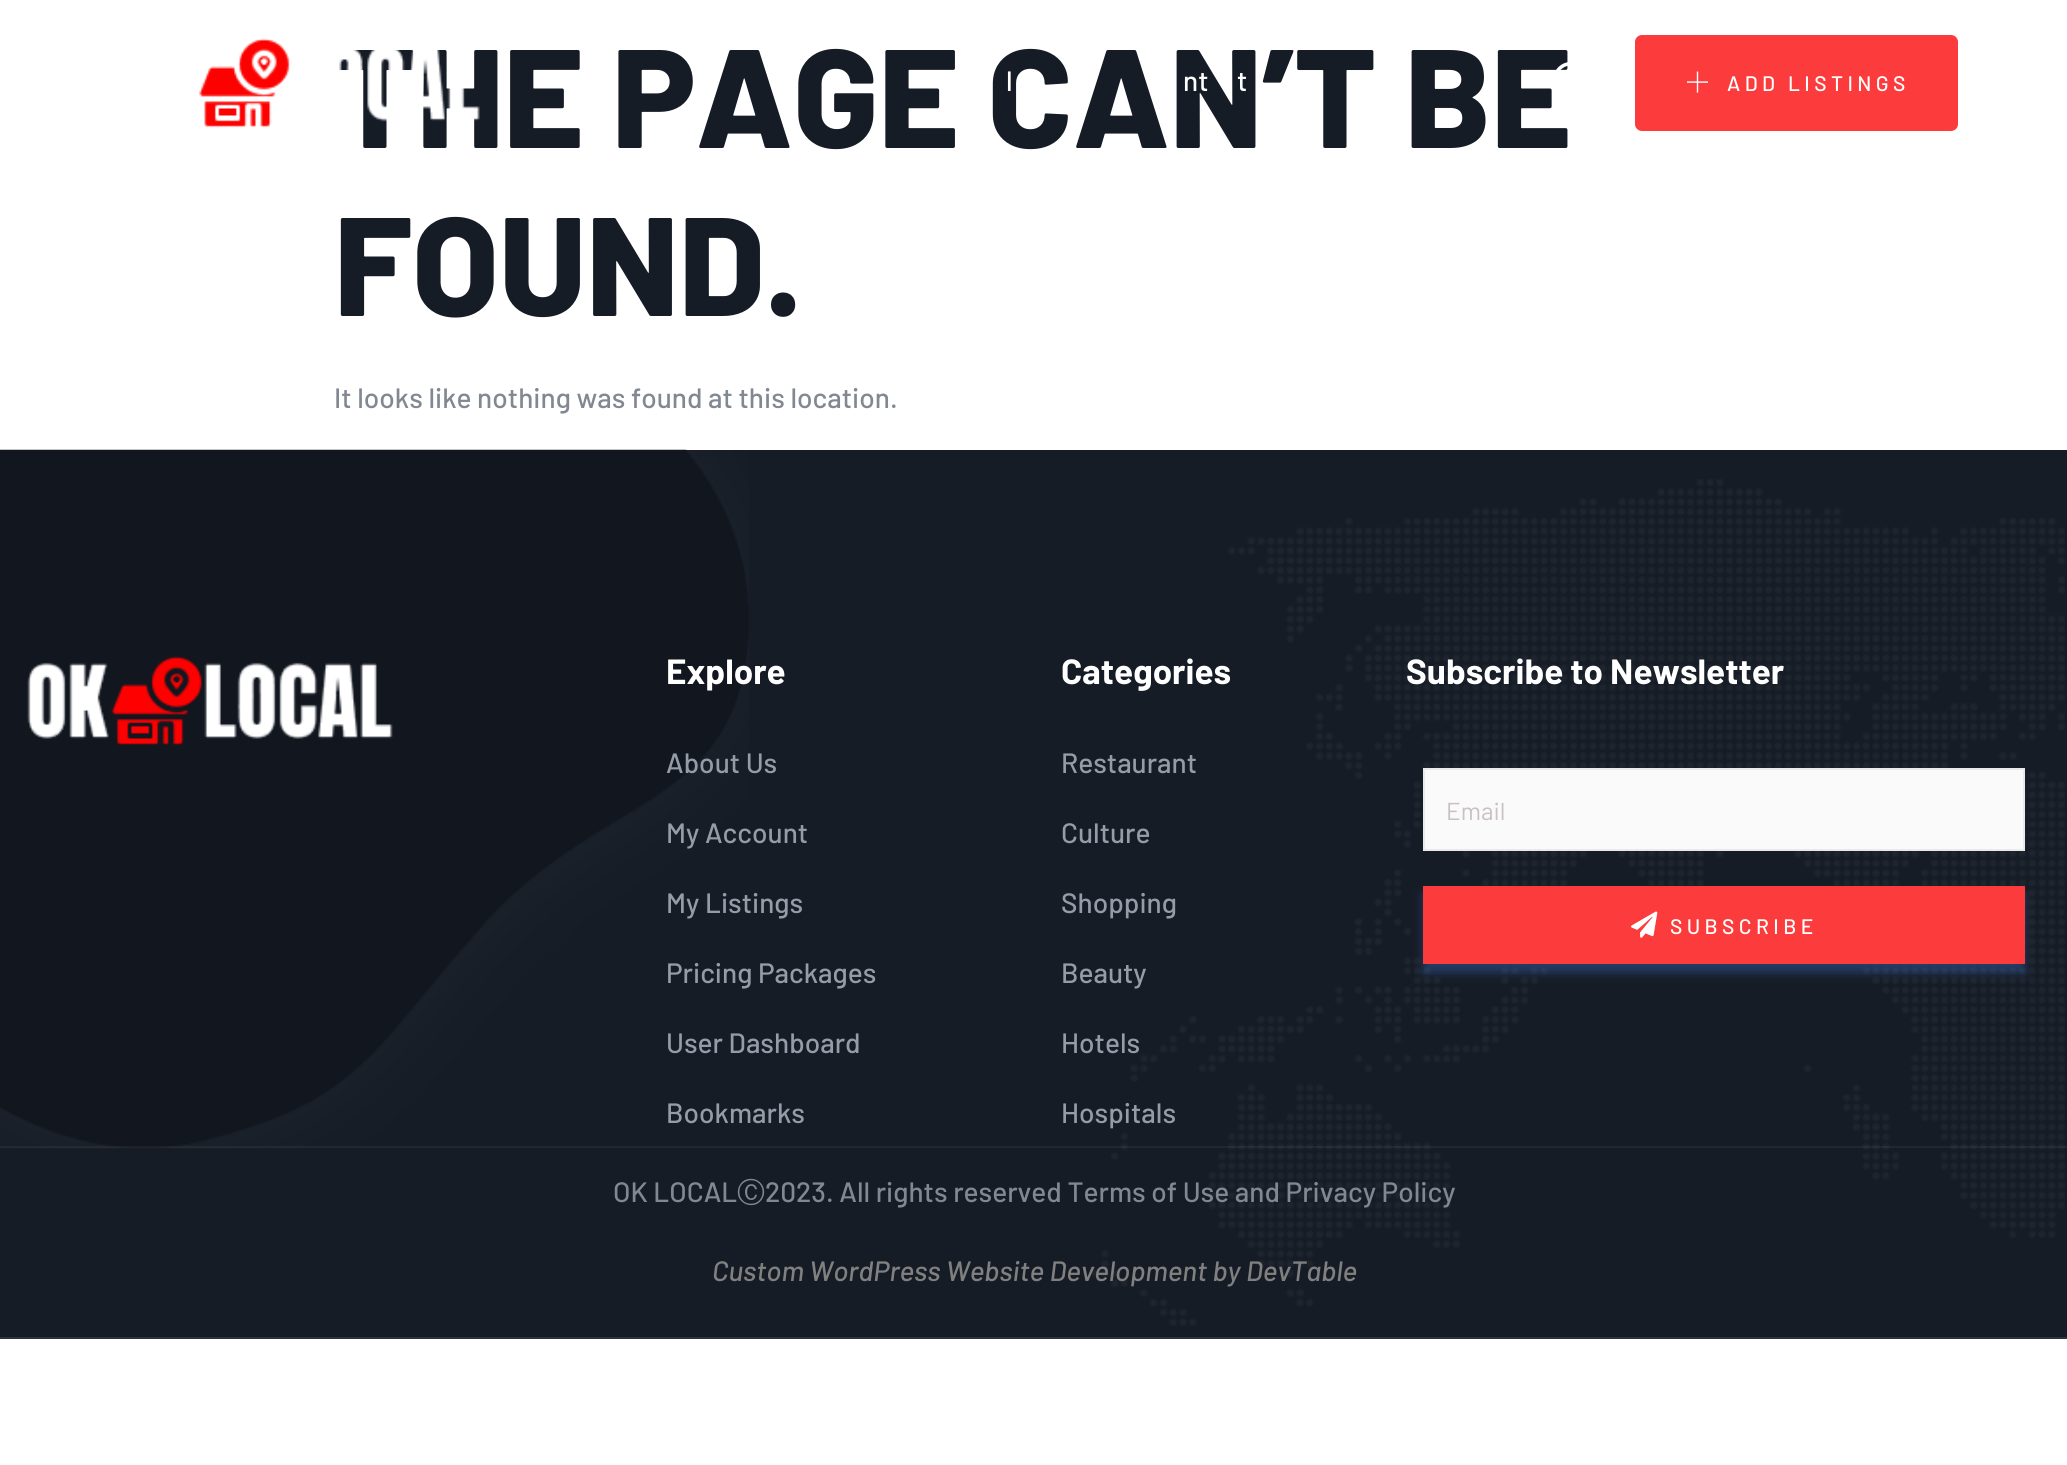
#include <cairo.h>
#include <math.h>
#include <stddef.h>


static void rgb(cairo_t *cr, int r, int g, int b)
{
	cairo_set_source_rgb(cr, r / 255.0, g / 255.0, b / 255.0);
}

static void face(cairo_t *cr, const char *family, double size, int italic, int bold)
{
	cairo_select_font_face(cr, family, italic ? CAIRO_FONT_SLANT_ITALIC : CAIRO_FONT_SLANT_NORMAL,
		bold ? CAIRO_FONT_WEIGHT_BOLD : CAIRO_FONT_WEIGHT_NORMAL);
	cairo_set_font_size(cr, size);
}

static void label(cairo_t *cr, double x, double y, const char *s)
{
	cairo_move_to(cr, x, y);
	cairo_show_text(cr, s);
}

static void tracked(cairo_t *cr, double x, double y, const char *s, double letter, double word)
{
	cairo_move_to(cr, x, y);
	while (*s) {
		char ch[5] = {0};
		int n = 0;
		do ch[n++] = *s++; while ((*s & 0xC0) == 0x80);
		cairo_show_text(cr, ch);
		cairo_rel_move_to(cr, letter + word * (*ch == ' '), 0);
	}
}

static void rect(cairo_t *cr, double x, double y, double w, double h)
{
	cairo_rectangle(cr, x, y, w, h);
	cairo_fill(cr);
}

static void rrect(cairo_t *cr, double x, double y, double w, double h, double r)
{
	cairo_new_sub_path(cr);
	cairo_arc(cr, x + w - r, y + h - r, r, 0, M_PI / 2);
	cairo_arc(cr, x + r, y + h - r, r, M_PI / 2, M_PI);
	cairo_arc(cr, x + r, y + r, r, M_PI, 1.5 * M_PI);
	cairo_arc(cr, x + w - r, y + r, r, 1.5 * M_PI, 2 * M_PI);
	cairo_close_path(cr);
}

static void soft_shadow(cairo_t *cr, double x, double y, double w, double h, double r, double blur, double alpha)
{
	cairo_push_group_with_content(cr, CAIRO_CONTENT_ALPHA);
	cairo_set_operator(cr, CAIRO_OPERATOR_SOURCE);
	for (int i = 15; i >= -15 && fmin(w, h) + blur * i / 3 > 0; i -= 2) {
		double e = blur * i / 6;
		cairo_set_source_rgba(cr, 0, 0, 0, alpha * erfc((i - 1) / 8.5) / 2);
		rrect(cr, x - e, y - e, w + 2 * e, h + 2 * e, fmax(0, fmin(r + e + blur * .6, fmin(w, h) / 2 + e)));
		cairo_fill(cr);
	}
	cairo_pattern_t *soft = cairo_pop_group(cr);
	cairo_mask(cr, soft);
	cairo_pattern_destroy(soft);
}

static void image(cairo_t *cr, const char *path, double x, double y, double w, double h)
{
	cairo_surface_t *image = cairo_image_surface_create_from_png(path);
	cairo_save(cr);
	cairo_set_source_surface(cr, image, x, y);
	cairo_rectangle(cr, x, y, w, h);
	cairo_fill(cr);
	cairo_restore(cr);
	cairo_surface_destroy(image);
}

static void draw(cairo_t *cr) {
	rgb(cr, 255, 255, 255);
	cairo_paint(cr);
	face(cr, "Barlow ExtraBold", 140, 0, 0);
	rgb(cr, 22, 28, 38);
	label(cr, 334, 148, "THE PAGE CAN’T BE");
	label(cr, 334, 316, "FOUND.");
	face(cr, "Barlow Medium", 28, 0, 0);
	rgb(cr, 130, 136, 146);
	label(cr, 334, 408, "It looks like nothing was found at this location.");
	image(cr, "image0.png", 199, 38, 281, 90);
	rgb(cr, 255, 255, 255);
	label(cr, 1006, 91, "l");
	label(cr, 1183, 91, "nt");
	label(cr, 1237, 91, "t");
	image(cr, "image1.png", 1556, 62, 12, 8);
	rgb(cr, 252, 60, 60);
	rrect(cr, 1635, 35, 323, 96, 7);
	cairo_fill(cr);
	image(cr, "image2.png", 1687, 71, 21, 22);
	face(cr, "Barlow Medium", 21, 0, 0);
	rgb(cr, 255, 255, 255);
	tracked(cr, 1727, 91, "ADD LISTINGS", 4.4, 0);
	rgb(cr, 22, 28, 38);
	rect(cr, 0, 450, 2067, 887);
	image(cr, "image3.png", 1092, 479, 973, 847);
	rgb(cr, 45, 51, 60);
	rect(cr, 0, 1337, 2067, 2);
	image(cr, "image4.png", 0, 449, 749, 700);
	image(cr, "image5.png", 27, 656, 366, 90);
	face(cr, "Barlow", 35, 0, 1);
	rgb(cr, 255, 255, 255);
	label(cr, 666, 684, "Explore");
	face(cr, "Barlow Medium", 28, 0, 0);
	rgb(cr, 149, 156, 167);
	label(cr, 666, 773, "About Us");
	label(cr, 666, 843, "My Account");
	label(cr, 666, 913, "My Listings");
	label(cr, 666, 983, "Pricing Packages");
	label(cr, 666, 1053, "User Dashboard");
	label(cr, 666, 1123, "Bookmarks");
	face(cr, "Barlow", 35, 0, 1);
	rgb(cr, 255, 255, 255);
	label(cr, 1061, 684, "Categories");
	face(cr, "Barlow Medium", 28, 0, 0);
	rgb(cr, 149, 156, 167);
	label(cr, 1061, 773, "Restaurant");
	label(cr, 1061, 843, "Culture");
	label(cr, 1061, 913, "Shopping");
	label(cr, 1061, 983, "Beauty");
	label(cr, 1061, 1053, "Hotels");
	label(cr, 1061, 1123, "Hospitals");
	face(cr, "Barlow", 35, 0, 1);
	rgb(cr, 255, 255, 255);
	label(cr, 1406, 684, "Subscribe to Newsletter");
	rgb(cr, 250, 250, 250);
	cairo_rectangle(cr, 1424, 769, 600, 81);
	cairo_fill_preserve(cr);
	rgb(cr, 234, 234, 234);
	cairo_stroke(cr);
	face(cr, "Barlow", 24.5, 0, 0);
	rgb(cr, 201, 193, 193);
	label(cr, 1446, 820, "Email");
	rgb(cr, 66, 133, 244);
	soft_shadow(cr, 1423, 894, 602, 79, 0, 4.5, 0.3);
	rgb(cr, 252, 60, 60);
	rect(cr, 1423, 886, 602, 78);
	image(cr, "image6.png", 1631, 911, 27, 27);
	face(cr, "Barlow Medium", 21, 0, 0);
	rgb(cr, 255, 255, 255);
	tracked(cr, 1670, 934, "SUBSCRIBE", 4.4, 0);
	cairo_set_source_rgba(cr, 1, 1, 1, 0.05);
	rect(cr, 0, 1146, 2067, 2);
	face(cr, "Barlow Medium", 28, 0, 0);
	rgb(cr, 130, 136, 146);
	label(cr, 613, 1202, "OK LOCAL");
	face(cr, "WenQuanYi Zen Hei Medium", 28, 0, 0);
	label(cr, 737, 1202, "Ⓒ");
	face(cr, "Barlow Medium", 28, 0, 0);
	label(cr, 765, 1202, "2023. All rights reserved Terms of Use and Privacy Policy");
	face(cr, "Barlow Medium", 28, 1, 0);
	rgb(cr, 128, 128, 128);
	label(cr, 712, 1281, "Custom WordPress Website Development by DevTable");
}

int main(void) {
	cairo_surface_t *surface = cairo_image_surface_create(CAIRO_FORMAT_RGB24, 2067, 1465);
	cairo_t *cr = cairo_create(surface);
	cairo_font_options_t *options = cairo_font_options_create();
	cairo_font_options_set_hint_metrics(options, CAIRO_HINT_METRICS_OFF);
	cairo_font_options_set_hint_style(options, CAIRO_HINT_STYLE_NONE);
	cairo_set_font_options(cr, options);
	cairo_set_miter_limit(cr, 4);
	draw(cr);
	cairo_surface_write_to_png(surface, "render.png");
	cairo_font_options_destroy(options);
	cairo_destroy(cr);
	cairo_surface_destroy(surface);
	return 0;
}
